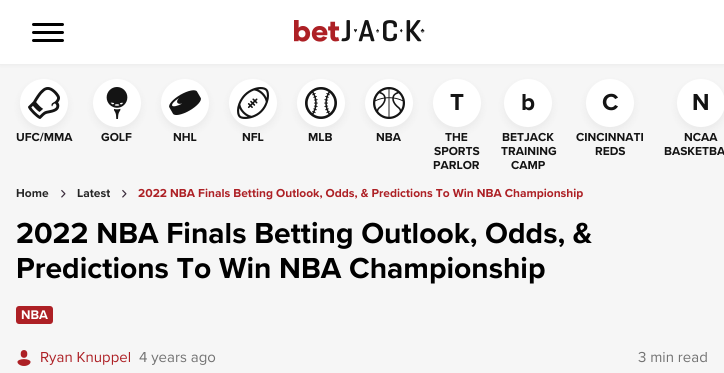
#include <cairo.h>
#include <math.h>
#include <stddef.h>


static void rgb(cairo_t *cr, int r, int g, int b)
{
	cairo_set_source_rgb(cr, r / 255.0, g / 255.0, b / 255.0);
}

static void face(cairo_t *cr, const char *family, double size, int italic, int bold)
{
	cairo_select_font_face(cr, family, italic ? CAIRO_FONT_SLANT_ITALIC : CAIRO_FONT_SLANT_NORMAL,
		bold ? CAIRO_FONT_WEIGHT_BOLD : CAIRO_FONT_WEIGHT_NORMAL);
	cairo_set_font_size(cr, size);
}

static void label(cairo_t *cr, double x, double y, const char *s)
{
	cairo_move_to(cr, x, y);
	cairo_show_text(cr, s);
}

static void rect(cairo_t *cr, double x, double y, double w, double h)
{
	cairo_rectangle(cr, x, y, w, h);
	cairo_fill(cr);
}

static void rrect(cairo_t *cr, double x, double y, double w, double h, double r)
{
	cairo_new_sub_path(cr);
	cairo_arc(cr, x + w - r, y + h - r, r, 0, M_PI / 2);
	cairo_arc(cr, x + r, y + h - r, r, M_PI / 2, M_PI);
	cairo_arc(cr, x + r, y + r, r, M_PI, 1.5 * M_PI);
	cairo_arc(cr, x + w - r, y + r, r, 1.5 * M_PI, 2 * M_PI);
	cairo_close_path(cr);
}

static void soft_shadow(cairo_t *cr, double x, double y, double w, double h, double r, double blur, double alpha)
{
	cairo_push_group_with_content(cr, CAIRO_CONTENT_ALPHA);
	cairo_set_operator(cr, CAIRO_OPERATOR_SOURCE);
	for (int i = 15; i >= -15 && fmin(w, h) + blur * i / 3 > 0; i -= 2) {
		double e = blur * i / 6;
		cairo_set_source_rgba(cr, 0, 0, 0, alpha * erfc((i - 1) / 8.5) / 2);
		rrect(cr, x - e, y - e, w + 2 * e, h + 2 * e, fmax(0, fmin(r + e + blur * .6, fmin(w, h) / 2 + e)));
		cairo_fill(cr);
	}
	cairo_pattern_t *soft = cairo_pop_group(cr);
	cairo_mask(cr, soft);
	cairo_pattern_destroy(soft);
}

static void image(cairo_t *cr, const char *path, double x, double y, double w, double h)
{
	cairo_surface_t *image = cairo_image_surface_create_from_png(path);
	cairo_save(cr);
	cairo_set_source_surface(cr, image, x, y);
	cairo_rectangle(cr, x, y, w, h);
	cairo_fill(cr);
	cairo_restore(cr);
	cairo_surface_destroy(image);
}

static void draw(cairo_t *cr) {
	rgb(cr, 246, 246, 246);
	cairo_paint(cr);
	rgb(cr, 0, 0, 0);
	soft_shadow(cr, 0, 1, 724, 64, 0, 2, 0.05);
	rgb(cr, 255, 255, 255);
	rect(cr, 0, 0, 724, 64);
	rgb(cr, 0, 0, 0);
	rrect(cr, 32, 31, 32, 3, 1.5);
	cairo_fill(cr);
	rrect(cr, 32, 23, 32, 3, 1.5);
	cairo_fill(cr);
	rrect(cr, 32, 39, 32, 3, 1.5);
	cairo_fill(cr);
	image(cr, "image0.png", 294, 20, 131, 22);
	rgb(cr, 0, 0, 0);
	soft_shadow(cr, 20, 83, 48, 48, 24, 4, 0.05);
	rgb(cr, 255, 255, 255);
	cairo_arc(cr, 44, 103, 24, 0, 2 * M_PI);
	cairo_fill(cr);
	image(cr, "image1.png", 28, 87, 32, 32);
	face(cr, "Proxima Nova", 12, 0, 1);
	rgb(cr, 20, 20, 20);
	label(cr, 16, 141, "UFC/MMA");
	rgb(cr, 0, 0, 0);
	soft_shadow(cr, 93, 83, 48, 48, 24, 4, 0.05);
	rgb(cr, 255, 255, 255);
	cairo_arc(cr, 117, 103, 24, 0, 2 * M_PI);
	cairo_fill(cr);
	image(cr, "image2.png", 106, 87, 22, 32);
	rgb(cr, 20, 20, 20);
	label(cr, 101, 141, "GOLF");
	rgb(cr, 0, 0, 0);
	soft_shadow(cr, 161, 83, 48, 48, 24, 4, 0.05);
	rgb(cr, 255, 255, 255);
	cairo_arc(cr, 185, 103, 24, 0, 2 * M_PI);
	cairo_fill(cr);
	image(cr, "image3.png", 169, 90, 32, 25);
	rgb(cr, 20, 20, 20);
	label(cr, 173, 141, "NHL");
	rgb(cr, 0, 0, 0);
	soft_shadow(cr, 229, 83, 48, 48, 24, 4, 0.05);
	rgb(cr, 255, 255, 255);
	cairo_arc(cr, 253, 103, 24, 0, 2 * M_PI);
	cairo_fill(cr);
	image(cr, "image4.png", 237, 87, 32, 32);
	rgb(cr, 20, 20, 20);
	label(cr, 242, 141, "NFL");
	rgb(cr, 0, 0, 0);
	soft_shadow(cr, 297, 83, 48, 48, 24, 4, 0.05);
	rgb(cr, 255, 255, 255);
	cairo_arc(cr, 321, 103, 24, 0, 2 * M_PI);
	cairo_fill(cr);
	image(cr, "image5.png", 305, 87, 32, 32);
	rgb(cr, 20, 20, 20);
	label(cr, 308, 141, "MLB");
	rgb(cr, 0, 0, 0);
	soft_shadow(cr, 365, 83, 48, 48, 24, 4, 0.05);
	rgb(cr, 255, 255, 255);
	cairo_arc(cr, 389, 103, 24, 0, 2 * M_PI);
	cairo_fill(cr);
	image(cr, "image6.png", 373, 87, 32, 32);
	rgb(cr, 20, 20, 20);
	label(cr, 376, 141, "NBA");
	rgb(cr, 0, 0, 0);
	soft_shadow(cr, 433, 83, 48, 48, 24, 4, 0.05);
	rgb(cr, 255, 255, 255);
	cairo_arc(cr, 457, 103, 24, 0, 2 * M_PI);
	cairo_fill(cr);
	face(cr, "Proxima Nova", 24, 0, 1);
	rgb(cr, 20, 20, 20);
	label(cr, 450, 110, "T");
	face(cr, "Proxima Nova", 12, 0, 1);
	label(cr, 445, 141, "THE");
	label(cr, 434, 155, "SPORTS");
	label(cr, 433, 169, "PARLOR");
	rgb(cr, 0, 0, 0);
	soft_shadow(cr, 504, 83, 48, 48, 24, 4, 0.05);
	rgb(cr, 255, 255, 255);
	cairo_arc(cr, 528, 103, 24, 0, 2 * M_PI);
	cairo_fill(cr);
	face(cr, "Proxima Nova", 24, 0, 1);
	rgb(cr, 20, 20, 20);
	label(cr, 521, 110, "b");
	face(cr, "Proxima Nova", 12, 0, 1);
	label(cr, 502, 141, "BETJACK");
	label(cr, 501, 155, "TRAINING");
	label(cr, 511, 169, "CAMP");
	rgb(cr, 0, 0, 0);
	soft_shadow(cr, 586, 83, 48, 48, 24, 4, 0.05);
	rgb(cr, 255, 255, 255);
	cairo_arc(cr, 610, 103, 24, 0, 2 * M_PI);
	cairo_fill(cr);
	face(cr, "Proxima Nova", 24, 0, 1);
	rgb(cr, 20, 20, 20);
	label(cr, 602, 110, "C");
	face(cr, "Proxima Nova", 12, 0, 1);
	label(cr, 576, 141, "CINCINNATI");
	label(cr, 595, 155, "REDS");
	rgb(cr, 0, 0, 0);
	soft_shadow(cr, 677, 83, 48, 48, 24, 4, 0.05);
	rgb(cr, 255, 255, 255);
	cairo_arc(cr, 701, 103, 24, 0, 2 * M_PI);
	cairo_fill(cr);
	face(cr, "Proxima Nova", 24, 0, 1);
	rgb(cr, 20, 20, 20);
	label(cr, 692, 110, "N");
	face(cr, "Proxima Nova", 12, 0, 1);
	label(cr, 684, 141, "NCAA");
	label(cr, 664, 155, "BASKETBA");
	rgb(cr, 37, 37, 37);
	label(cr, 16, 197, "Home");
	image(cr, "image7.png", 61, 189, 5, 9);
	label(cr, 77, 197, "Latest");
	image(cr, "image7.png", 122, 189, 5, 9);
	rgb(cr, 173, 32, 37);
	label(cr, 138, 197, "2022 NBA Finals Betting Outlook, Odds, & Predictions To Win NBA Championship");
	face(cr, "Proxima Nova", 30, 0, 1);
	rgb(cr, 0, 0, 0);
	label(cr, 16, 243, "2022 NBA Finals Betting Outlook, Odds, &");
	label(cr, 16, 278, "Predictions To Win NBA Championship");
	rgb(cr, 173, 32, 37);
	rrect(cr, 16, 306, 37, 18, 3);
	cairo_fill(cr);
	face(cr, "Proxima Nova", 13, 0, 1);
	rgb(cr, 255, 255, 255);
	label(cr, 21, 319, "NBA");
	image(cr, "image8.png", 17, 350, 14, 16);
	face(cr, "Proxima Nova", 15, 0, 0);
	rgb(cr, 173, 32, 37);
	label(cr, 40, 362, "Ryan Knuppel");
	rgb(cr, 114, 114, 114);
	label(cr, 139, 362, "4 years ago");
	label(cr, 638, 362, "3 min read");
}

int main(void) {
	cairo_surface_t *surface = cairo_image_surface_create(CAIRO_FORMAT_RGB24, 724, 373);
	cairo_t *cr = cairo_create(surface);
	cairo_font_options_t *options = cairo_font_options_create();
	cairo_font_options_set_hint_metrics(options, CAIRO_HINT_METRICS_OFF);
	cairo_font_options_set_hint_style(options, CAIRO_HINT_STYLE_NONE);
	cairo_set_font_options(cr, options);
	cairo_set_miter_limit(cr, 4);
	draw(cr);
	cairo_surface_write_to_png(surface, "render.png");
	cairo_font_options_destroy(options);
	cairo_destroy(cr);
	cairo_surface_destroy(surface);
	return 0;
}
